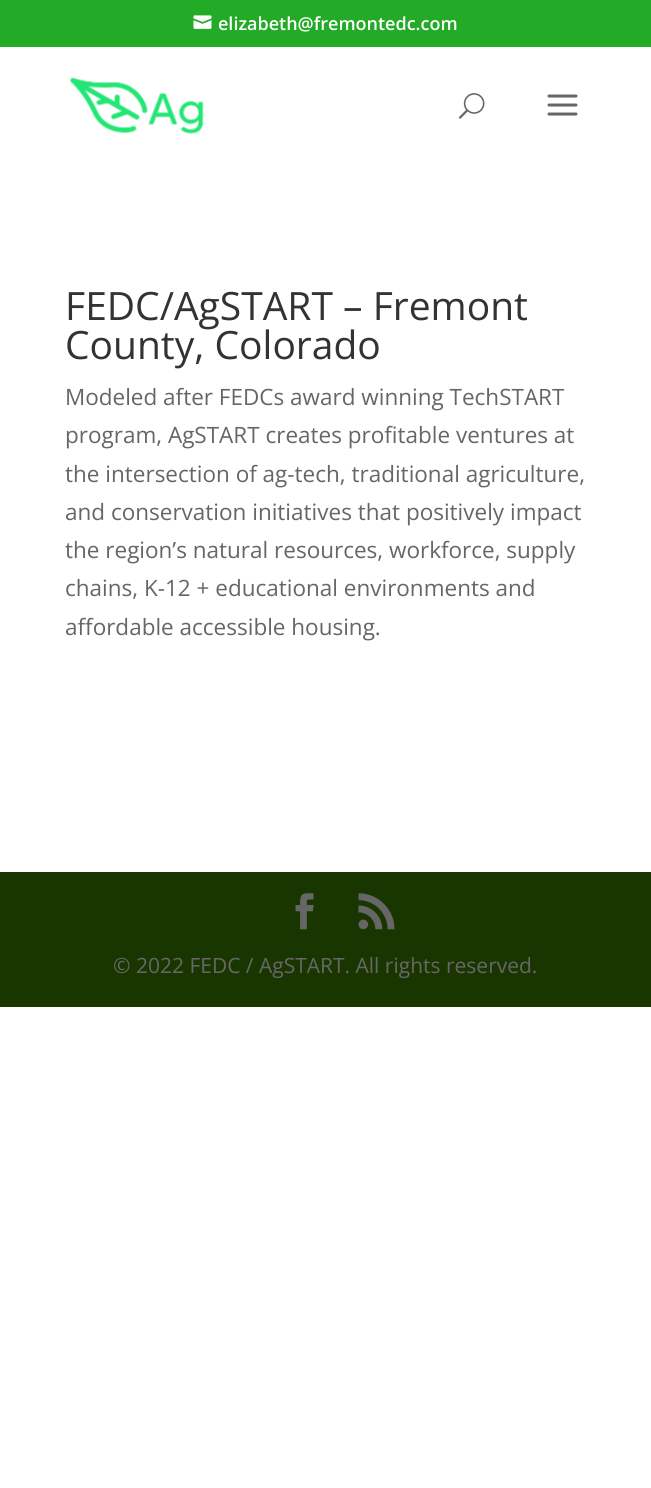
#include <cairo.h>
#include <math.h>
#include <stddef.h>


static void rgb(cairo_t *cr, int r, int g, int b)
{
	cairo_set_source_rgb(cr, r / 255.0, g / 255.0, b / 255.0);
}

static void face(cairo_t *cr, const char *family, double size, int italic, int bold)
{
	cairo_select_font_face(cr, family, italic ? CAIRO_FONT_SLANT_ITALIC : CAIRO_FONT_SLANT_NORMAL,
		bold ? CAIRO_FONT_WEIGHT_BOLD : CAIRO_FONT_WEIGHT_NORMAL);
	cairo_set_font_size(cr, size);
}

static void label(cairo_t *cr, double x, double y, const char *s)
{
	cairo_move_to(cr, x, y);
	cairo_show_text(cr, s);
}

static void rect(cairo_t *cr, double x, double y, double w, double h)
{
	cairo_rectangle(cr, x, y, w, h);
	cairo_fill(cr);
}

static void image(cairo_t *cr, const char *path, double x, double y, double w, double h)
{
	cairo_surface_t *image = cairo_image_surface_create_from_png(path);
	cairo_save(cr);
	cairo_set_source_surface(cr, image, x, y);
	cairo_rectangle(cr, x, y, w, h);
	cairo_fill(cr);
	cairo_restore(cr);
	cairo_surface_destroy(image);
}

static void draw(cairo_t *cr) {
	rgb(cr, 255, 255, 255);
	cairo_paint(cr);
	rgb(cr, 35, 170, 38);
	rect(cr, 0, 0, 651, 47);
	image(cr, "image0.png", 193, 15, 19, 14);
	face(cr, "Open Sans SemiBold", 18, 0, 0);
	rgb(cr, 255, 255, 255);
	label(cr, 218, 30, "elizabeth@fremontedc.com");
	image(cr, "image1.png", 70, 77, 134, 57);
	image(cr, "image2.png", 458, 93, 27, 26);
	image(cr, "image3.png", 547, 94, 31, 22);
	face(cr, "Open Sans", 39, 0, 0);
	rgb(cr, 51, 51, 51);
	label(cr, 65, 320, "FEDC/AgSTART – Fremont");
	label(cr, 65, 359, "County, Colorado");
	face(cr, "Open Sans", 22.5, 0, 0);
	rgb(cr, 102, 102, 102);
	label(cr, 65, 405, "Modeled after FEDCs award winning TechSTART");
	label(cr, 65, 443, "program, AgSTART creates profitable ventures at");
	label(cr, 65, 482, "the intersection of ag-tech, traditional agriculture,");
	label(cr, 65, 520, "and conservation initiatives that positively impact");
	label(cr, 65, 558, "the region’s natural resources, workforce, supply");
	label(cr, 65, 596, "chains, K-12 + educational environments and");
	label(cr, 65, 635, "affordable accessible housing.");
	rgb(cr, 26, 54, 0);
	rect(cr, 0, 872, 651, 135);
	image(cr, "image4.png", 295, 893, 19, 37);
	image(cr, "image5.png", 358, 893, 37, 37);
	face(cr, "Open Sans", 21, 0, 0);
	rgb(cr, 102, 102, 102);
	label(cr, 113, 973, "© 2022 FEDC / AgSTART. All rights reserved.");
}

int main(void) {
	cairo_surface_t *surface = cairo_image_surface_create(CAIRO_FORMAT_RGB24, 651, 1488);
	cairo_t *cr = cairo_create(surface);
	cairo_font_options_t *options = cairo_font_options_create();
	cairo_font_options_set_hint_metrics(options, CAIRO_HINT_METRICS_OFF);
	cairo_font_options_set_hint_style(options, CAIRO_HINT_STYLE_NONE);
	cairo_set_font_options(cr, options);
	cairo_set_miter_limit(cr, 4);
	draw(cr);
	cairo_surface_write_to_png(surface, "render.png");
	cairo_font_options_destroy(options);
	cairo_destroy(cr);
	cairo_surface_destroy(surface);
	return 0;
}
